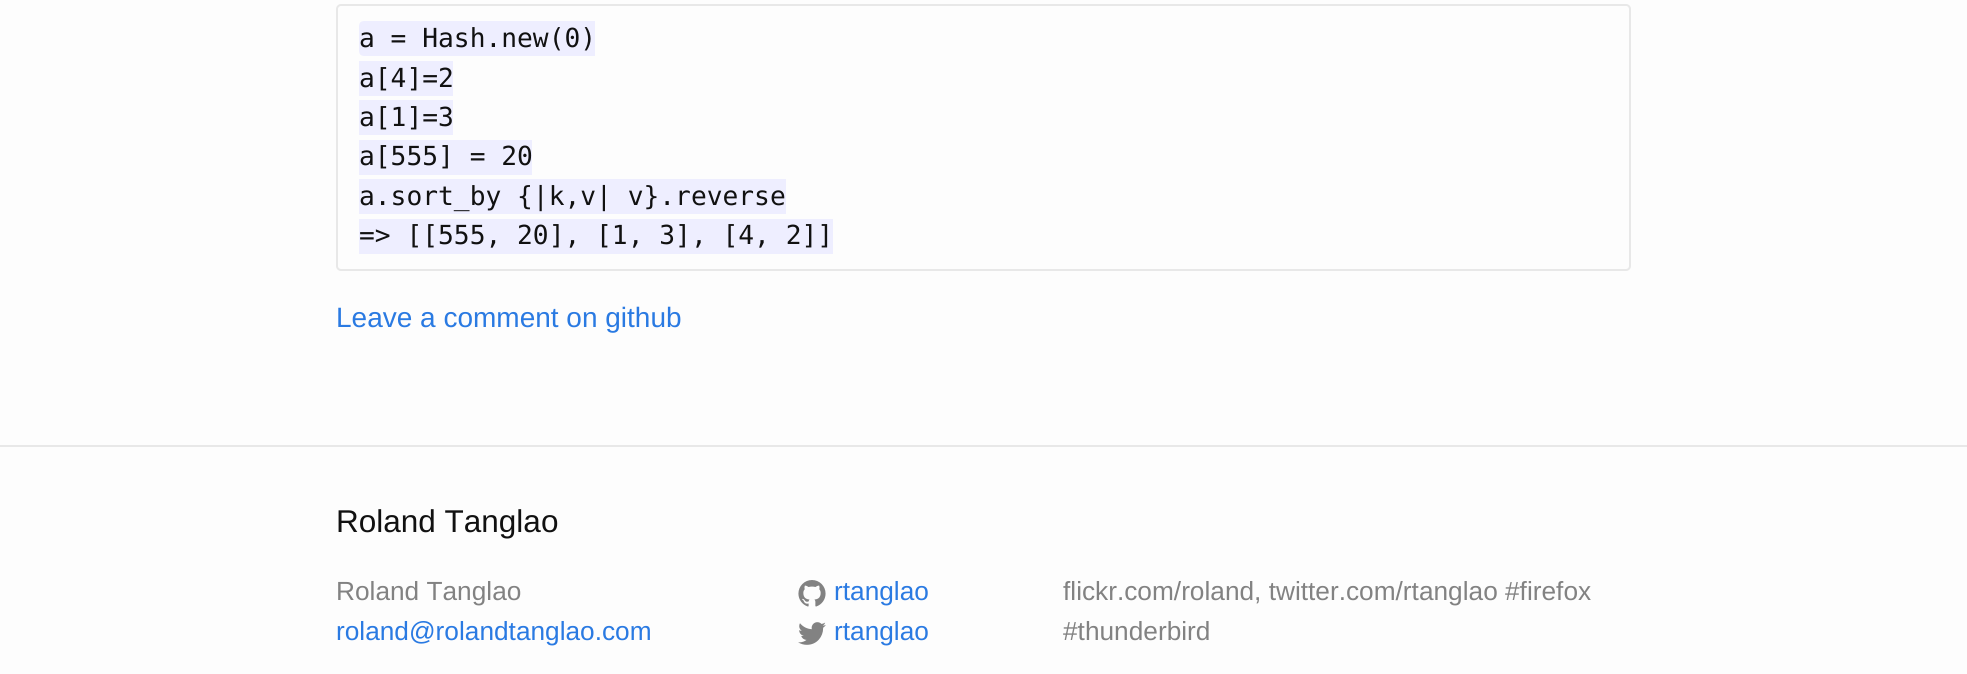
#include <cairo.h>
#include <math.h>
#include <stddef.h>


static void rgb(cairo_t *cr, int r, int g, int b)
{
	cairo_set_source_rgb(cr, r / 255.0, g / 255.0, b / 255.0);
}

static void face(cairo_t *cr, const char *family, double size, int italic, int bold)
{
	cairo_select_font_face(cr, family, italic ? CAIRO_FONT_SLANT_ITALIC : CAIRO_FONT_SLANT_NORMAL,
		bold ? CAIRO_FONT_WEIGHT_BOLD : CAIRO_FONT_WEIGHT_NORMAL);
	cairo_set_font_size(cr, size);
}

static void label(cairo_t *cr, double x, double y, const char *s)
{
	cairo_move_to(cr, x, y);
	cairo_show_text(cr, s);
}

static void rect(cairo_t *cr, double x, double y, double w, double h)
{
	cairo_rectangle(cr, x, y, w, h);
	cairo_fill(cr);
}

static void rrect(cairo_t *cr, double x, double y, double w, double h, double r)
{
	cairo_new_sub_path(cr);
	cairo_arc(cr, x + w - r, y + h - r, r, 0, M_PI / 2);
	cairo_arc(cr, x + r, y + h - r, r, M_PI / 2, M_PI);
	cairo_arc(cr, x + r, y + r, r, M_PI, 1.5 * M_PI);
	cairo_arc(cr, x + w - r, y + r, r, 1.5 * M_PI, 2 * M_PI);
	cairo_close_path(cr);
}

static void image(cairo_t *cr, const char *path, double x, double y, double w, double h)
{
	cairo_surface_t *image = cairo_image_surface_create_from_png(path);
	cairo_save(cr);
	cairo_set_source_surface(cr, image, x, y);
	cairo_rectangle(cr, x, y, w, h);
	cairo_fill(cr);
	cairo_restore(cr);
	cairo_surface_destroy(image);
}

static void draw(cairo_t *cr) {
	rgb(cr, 253, 253, 253);
	cairo_paint(cr);
	rrect(cr, 337, 5, 1293, 265, 4);
	rgb(cr, 232, 232, 232);
	cairo_stroke(cr);
	rgb(cr, 238, 238, 255);
	cairo_new_path(cr);
	cairo_move_to(cr, 364, 21);
	cairo_line_to(cr, 595, 21);
	cairo_line_to(cr, 595, 56);
	cairo_line_to(cr, 364, 56);
	cairo_curve_to(cr, 361, 56, 359, 54, 359, 51);
	cairo_line_to(cr, 359, 26);
	cairo_curve_to(cr, 359, 23, 361, 21, 364, 21);
	cairo_close_path(cr);
	cairo_fill(cr);
	face(cr, "DejaVu Sans Mono", 26.25, 0, 0);
	rgb(cr, 17, 17, 17);
	label(cr, 359, 47, "a = Hash.new(0)");
	rgb(cr, 238, 238, 255);
	rect(cr, 359, 61, 94, 35);
	rgb(cr, 17, 17, 17);
	label(cr, 359, 87, "a[4]=2");
	rgb(cr, 238, 238, 255);
	rect(cr, 359, 100, 94, 35);
	rgb(cr, 17, 17, 17);
	label(cr, 359, 126, "a[1]=3");
	rgb(cr, 238, 238, 255);
	rect(cr, 359, 140, 173, 35);
	rgb(cr, 17, 17, 17);
	label(cr, 359, 165, "a[555] = 20");
	rgb(cr, 238, 238, 255);
	rect(cr, 359, 179, 427, 35);
	rgb(cr, 17, 17, 17);
	label(cr, 359, 205, "a.sort_by {|k,v| v}.reverse");
	rgb(cr, 238, 238, 255);
	rect(cr, 359, 219, 474, 35);
	rgb(cr, 17, 17, 17);
	label(cr, 359, 244, "=> [[555, 20], [1, 3], [4, 2]]");
	face(cr, "Liberation Sans", 28, 0, 0);
	rgb(cr, 42, 122, 226);
	label(cr, 336, 327, "Leave a comment on github");
	rgb(cr, 232, 232, 232);
	rect(cr, 0, 445, 1967, 2);
	face(cr, "Liberation Sans", 31.5, 0, 0);
	rgb(cr, 17, 17, 17);
	label(cr, 336, 532, "Roland Tanglao");
	face(cr, "Liberation Sans", 26.25, 0, 0);
	rgb(cr, 130, 130, 130);
	label(cr, 336, 600, "Roland Tanglao");
	rgb(cr, 42, 122, 226);
	label(cr, 336, 640, "roland@rolandtanglao.com");
	image(cr, "image0.png", 798, 580, 28, 27);
	label(cr, 834, 600, "rtanglao");
	image(cr, "image1.png", 798, 622, 28, 23);
	label(cr, 834, 640, "rtanglao");
	rgb(cr, 130, 130, 130);
	label(cr, 1063, 600, "flickr.com/roland, twitter.com/rtanglao #firefox");
	label(cr, 1063, 640, "#thunderbird");
}

int main(void) {
	cairo_surface_t *surface = cairo_image_surface_create(CAIRO_FORMAT_RGB24, 1967, 674);
	cairo_t *cr = cairo_create(surface);
	cairo_font_options_t *options = cairo_font_options_create();
	cairo_font_options_set_hint_metrics(options, CAIRO_HINT_METRICS_OFF);
	cairo_font_options_set_hint_style(options, CAIRO_HINT_STYLE_NONE);
	cairo_set_font_options(cr, options);
	cairo_set_miter_limit(cr, 4);
	draw(cr);
	cairo_surface_write_to_png(surface, "render.png");
	cairo_font_options_destroy(options);
	cairo_destroy(cr);
	cairo_surface_destroy(surface);
	return 0;
}
